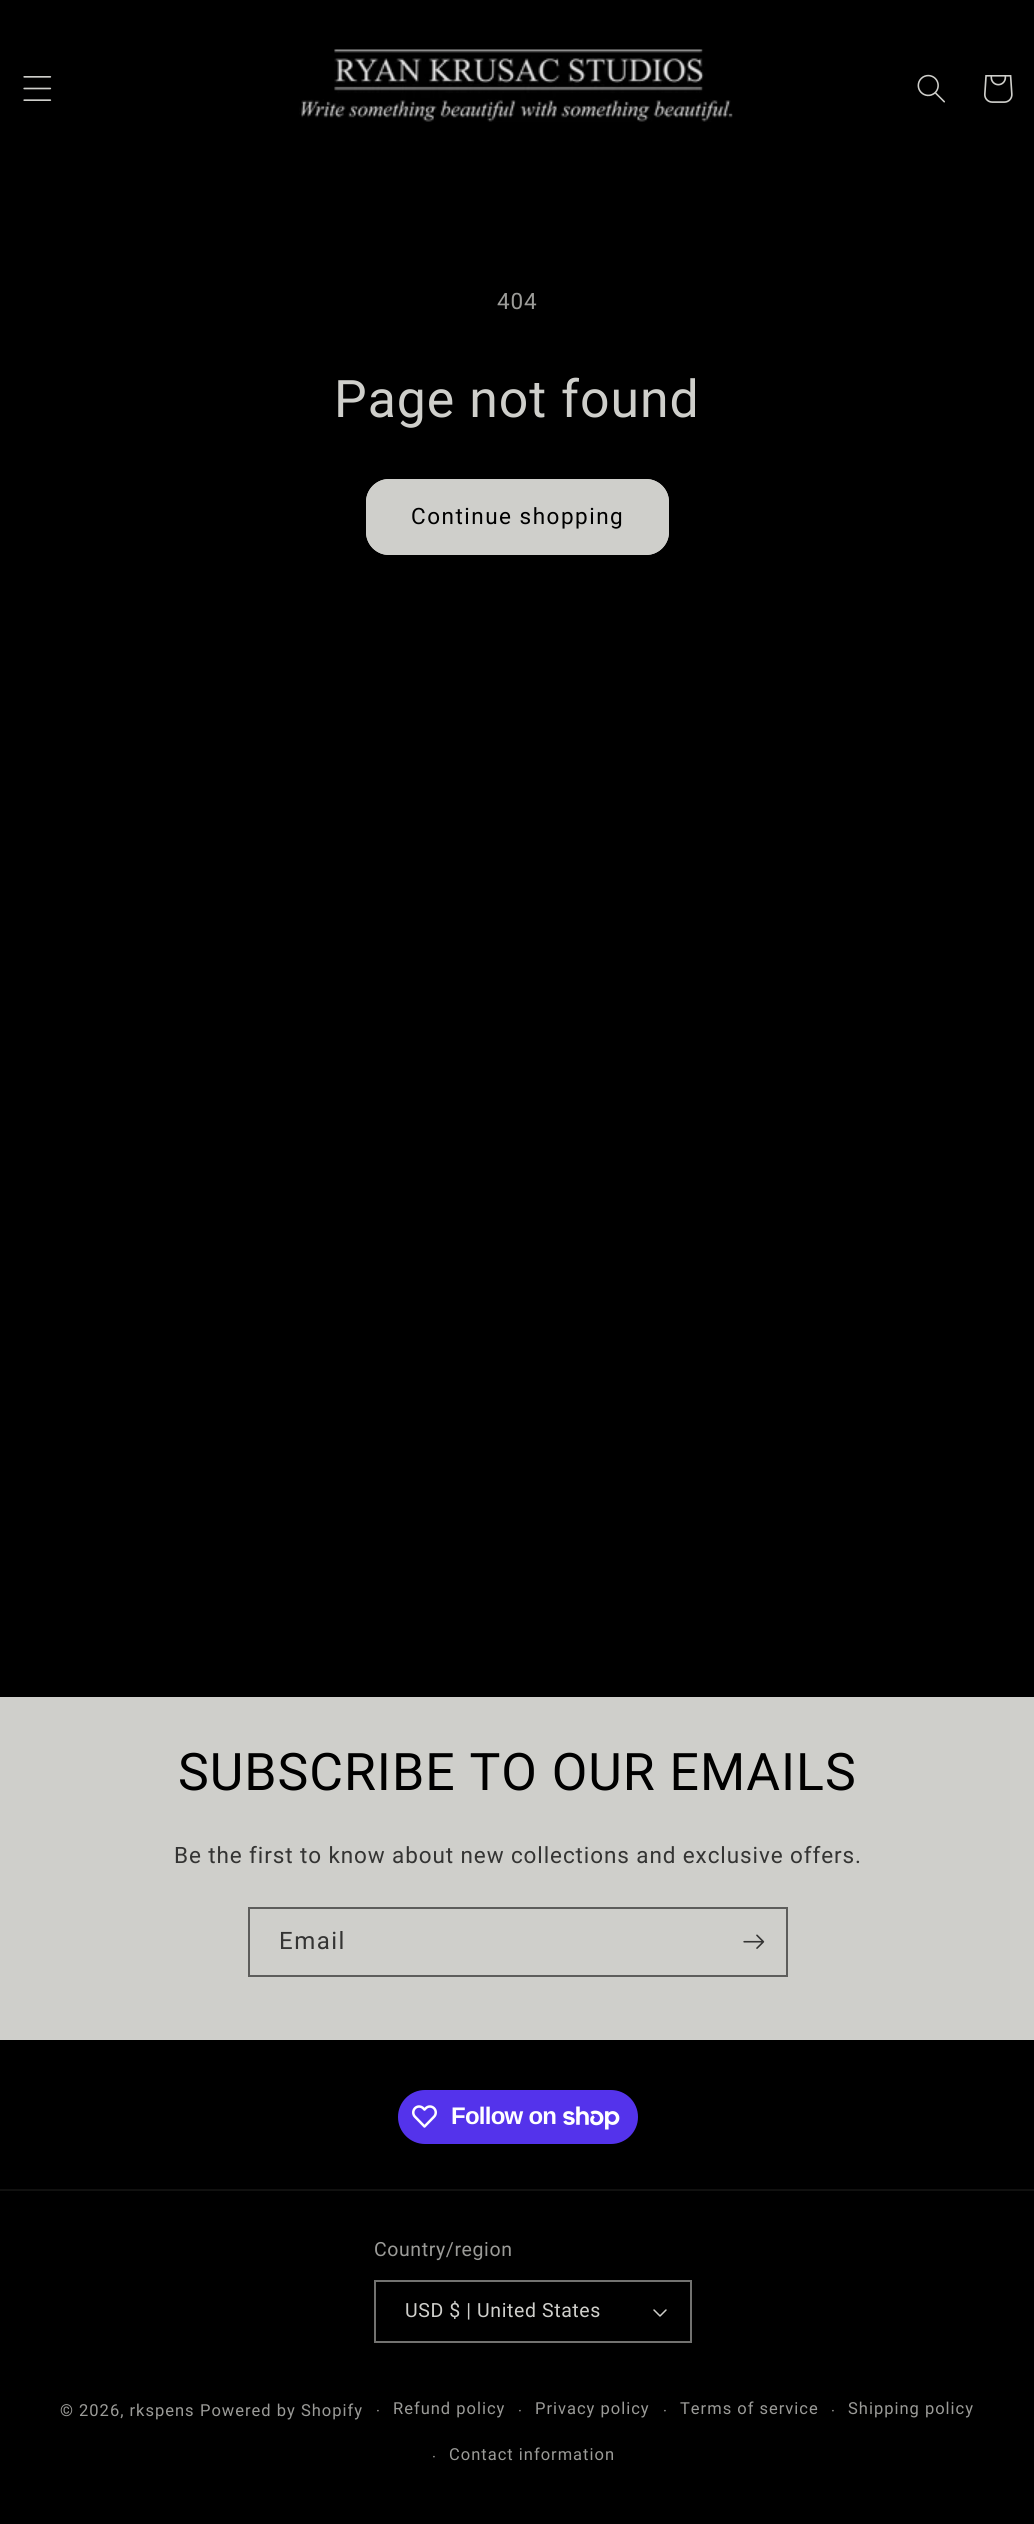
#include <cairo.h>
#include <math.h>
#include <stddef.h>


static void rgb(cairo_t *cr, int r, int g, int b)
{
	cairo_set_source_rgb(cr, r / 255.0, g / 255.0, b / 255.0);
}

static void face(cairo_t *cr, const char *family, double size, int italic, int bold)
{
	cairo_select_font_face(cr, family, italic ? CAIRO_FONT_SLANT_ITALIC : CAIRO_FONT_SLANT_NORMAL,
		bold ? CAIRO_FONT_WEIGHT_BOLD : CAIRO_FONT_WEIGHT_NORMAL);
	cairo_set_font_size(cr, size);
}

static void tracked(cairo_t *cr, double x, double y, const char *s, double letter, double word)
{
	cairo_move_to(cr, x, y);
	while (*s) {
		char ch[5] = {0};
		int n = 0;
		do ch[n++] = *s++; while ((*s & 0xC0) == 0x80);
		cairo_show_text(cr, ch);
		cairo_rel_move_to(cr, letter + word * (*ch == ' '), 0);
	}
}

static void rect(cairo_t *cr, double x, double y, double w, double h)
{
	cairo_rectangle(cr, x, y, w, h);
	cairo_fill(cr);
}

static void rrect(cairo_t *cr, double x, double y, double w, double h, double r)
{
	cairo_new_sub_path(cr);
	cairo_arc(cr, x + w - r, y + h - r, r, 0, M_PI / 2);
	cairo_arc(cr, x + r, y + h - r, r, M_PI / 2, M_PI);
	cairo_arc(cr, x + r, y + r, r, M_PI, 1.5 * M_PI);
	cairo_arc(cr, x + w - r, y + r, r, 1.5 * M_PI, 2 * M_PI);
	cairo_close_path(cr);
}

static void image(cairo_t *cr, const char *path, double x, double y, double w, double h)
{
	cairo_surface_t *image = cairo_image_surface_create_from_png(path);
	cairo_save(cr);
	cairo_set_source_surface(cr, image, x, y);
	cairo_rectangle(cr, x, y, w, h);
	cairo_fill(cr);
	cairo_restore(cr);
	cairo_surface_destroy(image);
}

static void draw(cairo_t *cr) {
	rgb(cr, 0, 0, 0);
	cairo_paint(cr);
	image(cr, "image0.png", 23, 76, 29, 25);
	image(cr, "image1.png", 299, 49, 434, 73);
	image(cr, "image2.png", 917, 74, 28, 29);
	image(cr, "image3.png", 984, 75, 29, 28);
	face(cr, "Roboto", 22.5, 0, 0);
	rgb(cr, 155, 155, 152);
	tracked(cr, 497, 309, "404", 0.9, 0);
	face(cr, "Roboto", 51.75, 0, 0);
	rgb(cr, 207, 207, 203);
	tracked(cr, 334, 417, "Page not found", 1, 0);
	rrect(cr, 366, 479, 303, 76, 23);
	cairo_fill(cr);
	rrect(cr, 368.5, 481.5, 298, 71, 20.5);
	cairo_set_line_width(cr, 5);
	cairo_stroke(cr);
	face(cr, "Roboto", 22.5, 0, 0);
	rgb(cr, 0, 0, 0);
	tracked(cr, 411, 524, "Continue shopping", 1.5, 0);
	rgb(cr, 207, 207, 203);
	rect(cr, 0, 1697, 1034, 343);
	face(cr, "Roboto", 51.75, 0, 0);
	rgb(cr, 0, 0, 0);
	tracked(cr, 178, 1790, "SUBSCRIBE TO OUR EMAILS", 1, 0);
	face(cr, "Roboto", 22.5, 0, 0);
	rgb(cr, 52, 52, 51);
	tracked(cr, 174, 1863, "Be the first to know about new collections and exclusive offers.", 0.9, 0);
	cairo_rectangle(cr, 249, 1908, 538, 68);
	rgb(cr, 93, 93, 91);
	cairo_set_line_width(cr, 2);
	cairo_stroke(cr);
	face(cr, "Roboto", 24, 0, 0);
	rgb(cr, 52, 52, 51);
	tracked(cr, 279, 1949, "Email", 1.5, 0);
	image(cr, "image4.png", 743, 1934, 22, 15);
	rgb(cr, 84, 51, 235);
	rrect(cr, 398, 2090, 240, 54, 27);
	cairo_fill(cr);
	image(cr, "image5.png", 412, 2105, 25, 23);
	face(cr, "Liberation Sans", 24, 0, 1);
	rgb(cr, 255, 255, 255);
	tracked(cr, 451, 2124, "Follow on", -0.75, 0);
	image(cr, "image6.png", 563, 2106, 57, 24);
	rgb(cr, 17, 17, 16);
	rect(cr, 0, 2189, 1034, 2);
	face(cr, "Roboto", 19.5, 0, 0);
	rgb(cr, 155, 155, 152);
	tracked(cr, 374, 2256, "Country/region", 0.6, 0);
	image(cr, "image7.png", 653, 2309, 14, 8);
	cairo_rectangle(cr, 375, 2281, 316, 61);
	rgb(cr, 114, 114, 112);
	cairo_stroke(cr);
	rgb(cr, 207, 207, 203);
	tracked(cr, 405, 2317, "USD $ | United States", 0.6, 0);
	face(cr, "Roboto", 16.5, 0, 0);
	rgb(cr, 155, 155, 152);
	tracked(cr, 60, 2416, "© 2026, rkspens", 1, 0);
	tracked(cr, 200, 2416, "Powered by Shopify", 1, 0);
	face(cr, "Roboto", 15, 0, 0);
	tracked(cr, 376, 2416, "·", 1, 0);
	face(cr, "Roboto", 16.5, 0, 0);
	tracked(cr, 393, 2414, "Refund policy", 1, 0);
	face(cr, "Roboto", 15, 0, 0);
	tracked(cr, 518, 2416, "·", 1, 0);
	face(cr, "Roboto", 16.5, 0, 0);
	tracked(cr, 535, 2414, "Privacy policy", 1, 0);
	face(cr, "Roboto", 15, 0, 0);
	tracked(cr, 663, 2416, "·", 1, 0);
	face(cr, "Roboto", 16.5, 0, 0);
	tracked(cr, 680, 2414, "Terms of service", 1, 0);
	face(cr, "Roboto", 15, 0, 0);
	tracked(cr, 831, 2416, "·", 1, 0);
	face(cr, "Roboto", 16.5, 0, 0);
	tracked(cr, 848, 2414, "Shipping policy", 1, 0);
	face(cr, "Roboto", 15, 0, 0);
	tracked(cr, 432, 2462, "·", 1, 0);
	face(cr, "Roboto", 16.5, 0, 0);
	tracked(cr, 449, 2460, "Contact information", 1, 0);
}

int main(void) {
	cairo_surface_t *surface = cairo_image_surface_create(CAIRO_FORMAT_RGB24, 1034, 2524);
	cairo_t *cr = cairo_create(surface);
	cairo_font_options_t *options = cairo_font_options_create();
	cairo_font_options_set_hint_metrics(options, CAIRO_HINT_METRICS_OFF);
	cairo_font_options_set_hint_style(options, CAIRO_HINT_STYLE_NONE);
	cairo_set_font_options(cr, options);
	cairo_set_miter_limit(cr, 4);
	draw(cr);
	cairo_surface_write_to_png(surface, "render.png");
	cairo_font_options_destroy(options);
	cairo_destroy(cr);
	cairo_surface_destroy(surface);
	return 0;
}
